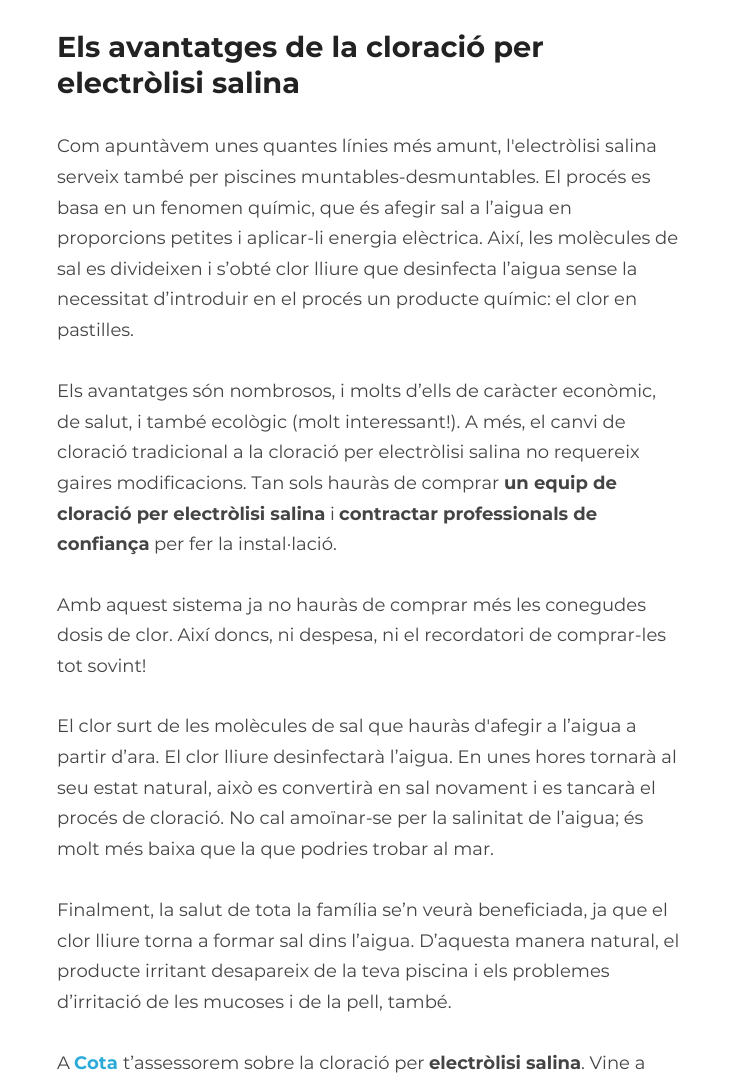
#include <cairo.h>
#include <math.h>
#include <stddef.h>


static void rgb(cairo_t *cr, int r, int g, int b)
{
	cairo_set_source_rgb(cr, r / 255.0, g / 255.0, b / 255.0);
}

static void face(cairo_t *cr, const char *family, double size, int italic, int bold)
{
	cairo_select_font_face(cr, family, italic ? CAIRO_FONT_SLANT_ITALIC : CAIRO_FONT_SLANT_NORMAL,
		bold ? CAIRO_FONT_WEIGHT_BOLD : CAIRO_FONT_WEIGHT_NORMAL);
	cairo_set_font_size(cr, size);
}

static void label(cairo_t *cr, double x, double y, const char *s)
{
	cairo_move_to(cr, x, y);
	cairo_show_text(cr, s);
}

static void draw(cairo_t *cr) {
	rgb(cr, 255, 255, 255);
	cairo_paint(cr);
	face(cr, "Montserrat", 28.75, 0, 1);
	rgb(cr, 34, 34, 34);
	label(cr, 57, 57, "Els avantatges de la cloració per");
	label(cr, 57, 93, "electròlisi salina");
	face(cr, "Montserrat", 18, 0, 0);
	rgb(cr, 68, 68, 68);
	label(cr, 57, 152, "Com apuntàvem unes quantes línies més amunt, l'electròlisi salina");
	label(cr, 57, 183, "serveix també per piscines muntables-desmuntables. El procés es");
	label(cr, 57, 214, "basa en un fenomen químic, que és afegir sal a l’aigua en");
	label(cr, 57, 244, "proporcions petites i aplicar-li energia elèctrica. Així, les molècules de");
	label(cr, 57, 275, "sal es divideixen i s’obté clor lliure que desinfecta l’aigua sense la");
	label(cr, 57, 305, "necessitat d’introduir en el procés un producte químic: el clor en");
	label(cr, 57, 336, "pastilles.");
	label(cr, 57, 397, "Els avantatges són nombrosos, i molts d’ells de caràcter econòmic,");
	label(cr, 57, 428, "de salut, i també ecològic (molt interessant!). A més, el canvi de");
	label(cr, 57, 458, "cloració tradicional a la cloració per electròlisi salina no requereix");
	label(cr, 57, 489, "gaires modificacions. Tan sols hauràs de comprar");
	face(cr, "Montserrat", 18, 0, 1);
	label(cr, 504, 489, "un equip de");
	label(cr, 57, 520, "cloració per electròlisi salina");
	face(cr, "Montserrat", 18, 0, 0);
	label(cr, 330, 520, "i");
	face(cr, "Montserrat", 18, 0, 1);
	label(cr, 339, 520, "contractar professionals de");
	label(cr, 57, 550, "confiança");
	face(cr, "Montserrat", 18, 0, 0);
	label(cr, 154, 550, "per fer la instal·lació.");
	label(cr, 57, 611, "Amb aquest sistema ja no hauràs de comprar més les conegudes");
	label(cr, 57, 641, "dosis de clor. Així doncs, ni despesa, ni el recordatori de comprar-les");
	label(cr, 57, 672, "tot sovint!");
	label(cr, 57, 732, "El clor surt de les molècules de sal que hauràs d'afegir a l’aigua a");
	label(cr, 57, 763, "partir d’ara. El clor lliure desinfectarà l’aigua. En unes hores tornarà al");
	label(cr, 57, 794, "seu estat natural, això es convertirà en sal novament i es tancarà el");
	label(cr, 57, 824, "procés de cloració. No cal amoïnar-se per la salinitat de l’aigua; és");
	label(cr, 57, 855, "molt més baixa que la que podries trobar al mar.");
	label(cr, 57, 916, "Finalment, la salut de tota la família se’n veurà beneficiada, ja que el");
	label(cr, 57, 947, "clor lliure torna a formar sal dins l’aigua. D’aquesta manera natural, el");
	label(cr, 57, 977, "producte irritant desapareix de la teva piscina i els problemes");
	label(cr, 57, 1008, "d’irritació de les mucoses i de la pell, també.");
	label(cr, 57, 1069, "A");
	face(cr, "Montserrat", 18, 0, 1);
	rgb(cr, 42, 171, 217);
	label(cr, 74, 1069, "Cota");
	face(cr, "Montserrat", 18, 0, 0);
	rgb(cr, 68, 68, 68);
	label(cr, 123, 1069, "t’assessorem sobre la cloració per");
	face(cr, "Montserrat", 18, 0, 1);
	label(cr, 429, 1069, "electròlisi salina");
	face(cr, "Montserrat", 18, 0, 0);
	label(cr, 581, 1069, ". Vine a");
}

int main(void) {
	cairo_surface_t *surface = cairo_image_surface_create(CAIRO_FORMAT_RGB24, 739, 1085);
	cairo_t *cr = cairo_create(surface);
	cairo_font_options_t *options = cairo_font_options_create();
	cairo_font_options_set_hint_metrics(options, CAIRO_HINT_METRICS_OFF);
	cairo_font_options_set_hint_style(options, CAIRO_HINT_STYLE_NONE);
	cairo_set_font_options(cr, options);
	cairo_set_miter_limit(cr, 4);
	draw(cr);
	cairo_surface_write_to_png(surface, "render.png");
	cairo_font_options_destroy(options);
	cairo_destroy(cr);
	cairo_surface_destroy(surface);
	return 0;
}
